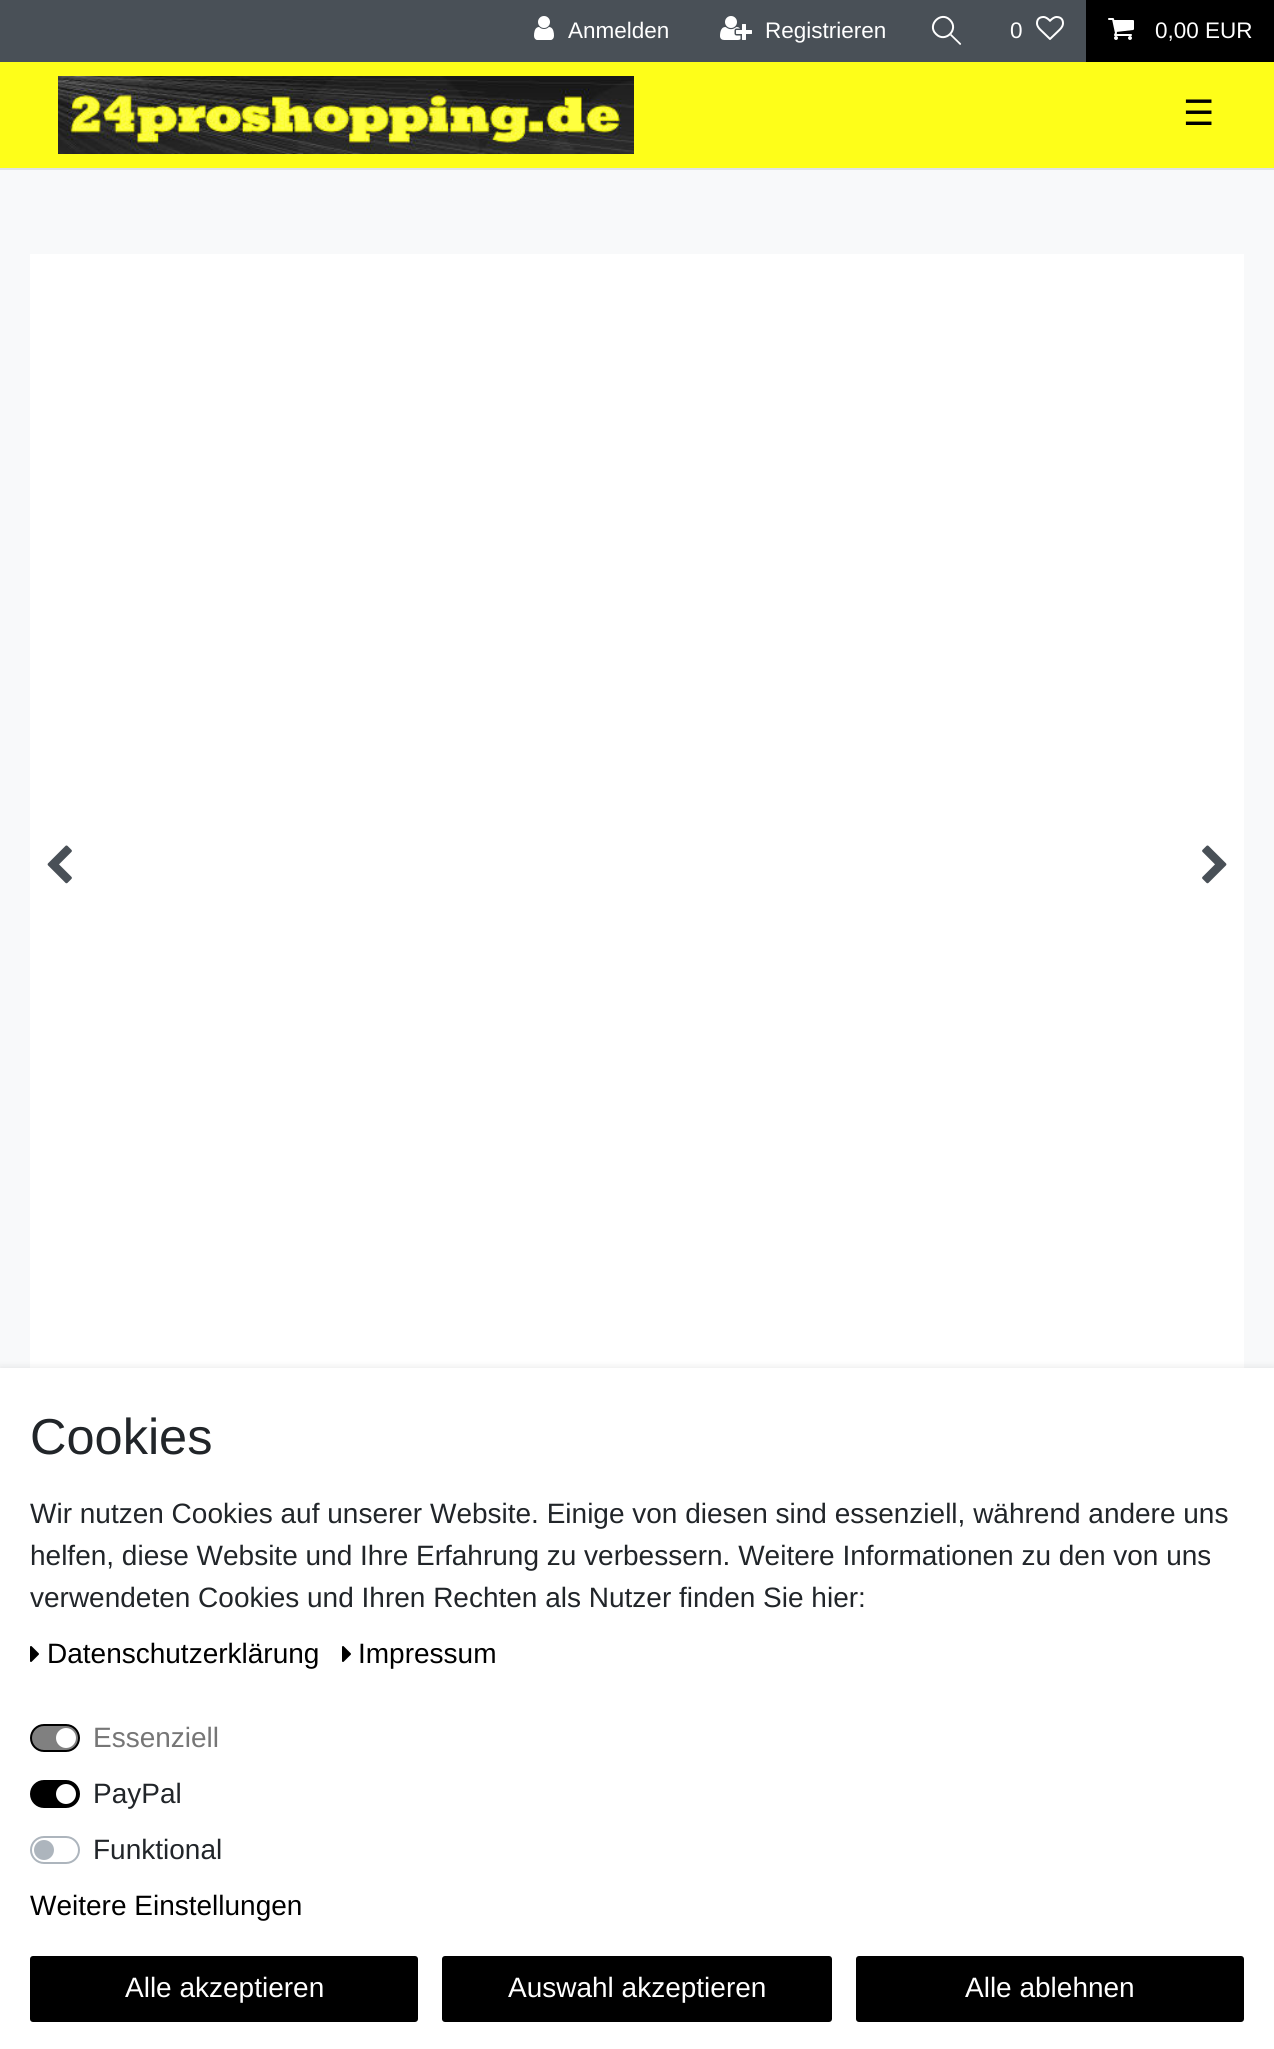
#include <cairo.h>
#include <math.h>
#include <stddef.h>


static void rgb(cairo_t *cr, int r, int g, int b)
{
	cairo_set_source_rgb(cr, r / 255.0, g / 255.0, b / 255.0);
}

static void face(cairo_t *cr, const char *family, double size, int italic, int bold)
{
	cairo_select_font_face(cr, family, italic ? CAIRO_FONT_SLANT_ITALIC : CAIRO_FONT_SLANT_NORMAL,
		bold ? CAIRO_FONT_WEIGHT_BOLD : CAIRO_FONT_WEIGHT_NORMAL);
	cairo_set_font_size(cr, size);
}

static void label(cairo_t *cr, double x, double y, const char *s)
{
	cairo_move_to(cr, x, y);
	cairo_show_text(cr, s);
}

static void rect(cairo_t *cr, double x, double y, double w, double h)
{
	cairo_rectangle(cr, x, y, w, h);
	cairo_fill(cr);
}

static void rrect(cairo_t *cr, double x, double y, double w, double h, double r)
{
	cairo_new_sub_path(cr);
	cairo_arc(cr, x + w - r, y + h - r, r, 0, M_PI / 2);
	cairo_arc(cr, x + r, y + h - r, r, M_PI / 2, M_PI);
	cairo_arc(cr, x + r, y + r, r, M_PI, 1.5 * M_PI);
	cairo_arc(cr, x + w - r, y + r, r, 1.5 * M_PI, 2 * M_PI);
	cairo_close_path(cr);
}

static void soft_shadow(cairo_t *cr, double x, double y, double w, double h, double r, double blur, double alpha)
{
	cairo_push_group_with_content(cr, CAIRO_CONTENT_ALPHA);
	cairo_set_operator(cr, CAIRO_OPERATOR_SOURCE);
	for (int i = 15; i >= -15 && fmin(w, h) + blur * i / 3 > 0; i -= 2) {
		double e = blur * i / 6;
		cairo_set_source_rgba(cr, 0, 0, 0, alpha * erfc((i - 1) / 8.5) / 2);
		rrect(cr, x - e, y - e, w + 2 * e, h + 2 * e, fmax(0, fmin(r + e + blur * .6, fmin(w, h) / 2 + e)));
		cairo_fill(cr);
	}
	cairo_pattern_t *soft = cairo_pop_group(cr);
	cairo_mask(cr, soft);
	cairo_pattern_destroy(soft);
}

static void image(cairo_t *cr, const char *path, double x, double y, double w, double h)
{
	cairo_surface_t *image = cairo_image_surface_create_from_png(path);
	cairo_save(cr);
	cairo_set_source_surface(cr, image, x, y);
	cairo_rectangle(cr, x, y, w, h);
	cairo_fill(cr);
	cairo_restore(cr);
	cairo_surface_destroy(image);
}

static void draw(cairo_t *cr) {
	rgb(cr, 248, 249, 250);
	cairo_paint(cr);
	rgb(cr, 73, 80, 87);
	rect(cr, 0, 0, 1086, 62);
	image(cr, "image0.png", 534, 16, 20, 24);
	face(cr, "Liberation Sans", 22.5, 0, 0);
	rgb(cr, 255, 255, 255);
	label(cr, 568, 38, "Anmelden");
	image(cr, "image1.png", 720, 16, 32, 24);
	label(cr, 765, 38, "Registrieren");
	cairo_new_path(cr);
	cairo_move_to(cr, 959.5, 44.5);
	cairo_line_to(cr, 939.5, 25);
	cairo_line_to(cr, 939, 24);
	cairo_curve_to(cr, 939.5, 23.5, 940, 23, 940.5, 23.5);
	cairo_line_to(cr, 961, 43.5);
	cairo_curve_to(cr, 961.5, 44.5, 960, 45.5, 959.5, 44.5);
	cairo_close_path(cr);
	cairo_fill(cr);
	rgb(cr, 73, 80, 87);
	cairo_new_path(cr);
	cairo_move_to(cr, 935, 35);
	cairo_curve_to(cr, 925, 24.5, 940.5, 9, 951, 19.5);
	cairo_curve_to(cr, 961, 29.5, 945.5, 45, 935, 35);
	cairo_close_path(cr);
	cairo_fill(cr);
	cairo_new_path(cr);
	cairo_move_to(cr, 936, 34);
	cairo_curve_to(cr, 926.5, 25, 941, 10.5, 950, 20);
	cairo_curve_to(cr, 959.5, 29.5, 945, 43.5, 936, 34);
	cairo_close_path(cr);
	rgb(cr, 255, 255, 255);
	cairo_stroke(cr);
	label(cr, 1010, 38, "0");
	image(cr, "image2.png", 1036, 16, 28, 24);
	rgb(cr, 0, 0, 0);
	rect(cr, 1086, 0, 188, 62);
	image(cr, "image3.png", 1108, 18, 26, 22);
	rgb(cr, 255, 255, 255);
	label(cr, 1155, 38, "0,00 EUR");
	rgb(cr, 254, 254, 25);
	rect(cr, 0, 62, 1274, 106);
	rgb(cr, 222, 226, 230);
	rect(cr, 0, 168, 1274, 2);
	image(cr, "image4.png", 58, 76, 576, 78);
	face(cr, "DejaVu Sans", 35, 0, 0);
	rgb(cr, 0, 0, 0);
	label(cr, 1183, 125, "☰");
	rgb(cr, 255, 255, 255);
	rect(cr, 30, 254, 1214, 1114);
	image(cr, "image5.png", 47, 845, 25, 39);
	image(cr, "image6.png", 1202, 845, 25, 39);
	rgb(cr, 0, 0, 0);
	soft_shadow(cr, 0, 1370, 1274, 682, 0, 5, 0.15);
	rgb(cr, 255, 255, 255);
	rect(cr, 0, 1368, 1274, 681);
	face(cr, "Liberation Sans", 50.5, 0, 0);
	rgb(cr, 33, 37, 41);
	label(cr, 30, 1454, "Cookies");
	face(cr, "Liberation Sans", 28, 0, 0);
	label(cr, 30, 1523, "Wir nutzen Cookies auf unserer Website. Einige von diesen sind essenziell, während andere uns");
	label(cr, 30, 1565, "helfen, diese Website und Ihre Erfahrung zu verbessern. Weitere Informationen zu den von uns");
	label(cr, 30, 1607, "verwendeten Cookies und Ihren Rechten als Nutzer finden Sie hier:");
	image(cr, "image7.png", 30, 1646, 9, 16);
	rgb(cr, 0, 0, 0);
	label(cr, 47, 1663, "Datenschutzerklärung");
	image(cr, "image7.png", 342, 1646, 9, 16);
	label(cr, 358, 1663, "Impressum");
	rgb(cr, 128, 128, 128);
	rrect(cr, 31, 1725, 48, 26, 13);
	cairo_fill_preserve(cr);
	rgb(cr, 0, 0, 0);
	cairo_stroke(cr);
	rgb(cr, 118, 118, 118);
	label(cr, 93, 1747, "Essenziell");
	rgb(cr, 255, 255, 255);
	cairo_new_path(cr);
	cairo_arc(cr, 66, 1738, 10, 0, 2 * M_PI);
	cairo_fill(cr);
	rgb(cr, 0, 0, 0);
	rrect(cr, 31, 1781, 48, 26, 13);
	cairo_fill_preserve(cr);
	cairo_stroke(cr);
	rgb(cr, 33, 37, 41);
	label(cr, 93, 1803, "PayPal");
	rgb(cr, 255, 255, 255);
	cairo_new_path(cr);
	cairo_arc(cr, 66, 1794, 10, 0, 2 * M_PI);
	cairo_fill(cr);
	rrect(cr, 31, 1837, 48, 26, 13);
	rgb(cr, 173, 181, 189);
	cairo_stroke(cr);
	rgb(cr, 33, 37, 41);
	label(cr, 93, 1859, "Funktional");
	rgb(cr, 173, 181, 189);
	cairo_new_path(cr);
	cairo_arc(cr, 44, 1850, 10, 0, 2 * M_PI);
	cairo_fill(cr);
	rgb(cr, 0, 0, 0);
	label(cr, 30, 1915, "Weitere Einstellungen");
	rrect(cr, 31, 1957, 386, 64, 2);
	cairo_fill_preserve(cr);
	cairo_stroke(cr);
	rgb(cr, 255, 255, 255);
	label(cr, 125, 1997, "Alle akzeptieren");
	rgb(cr, 0, 0, 0);
	rrect(cr, 443, 1957, 388, 64, 2);
	cairo_fill_preserve(cr);
	cairo_stroke(cr);
	rgb(cr, 255, 255, 255);
	label(cr, 508, 1997, "Auswahl akzeptieren");
	rgb(cr, 0, 0, 0);
	rrect(cr, 857, 1957, 386, 64, 2);
	cairo_fill_preserve(cr);
	cairo_stroke(cr);
	rgb(cr, 255, 255, 255);
	label(cr, 965, 1997, "Alle ablehnen");
}

int main(void) {
	cairo_surface_t *surface = cairo_image_surface_create(CAIRO_FORMAT_RGB24, 1274, 2049);
	cairo_t *cr = cairo_create(surface);
	cairo_font_options_t *options = cairo_font_options_create();
	cairo_font_options_set_hint_metrics(options, CAIRO_HINT_METRICS_OFF);
	cairo_font_options_set_hint_style(options, CAIRO_HINT_STYLE_NONE);
	cairo_set_font_options(cr, options);
	cairo_set_miter_limit(cr, 4);
	draw(cr);
	cairo_surface_write_to_png(surface, "render.png");
	cairo_font_options_destroy(options);
	cairo_destroy(cr);
	cairo_surface_destroy(surface);
	return 0;
}
